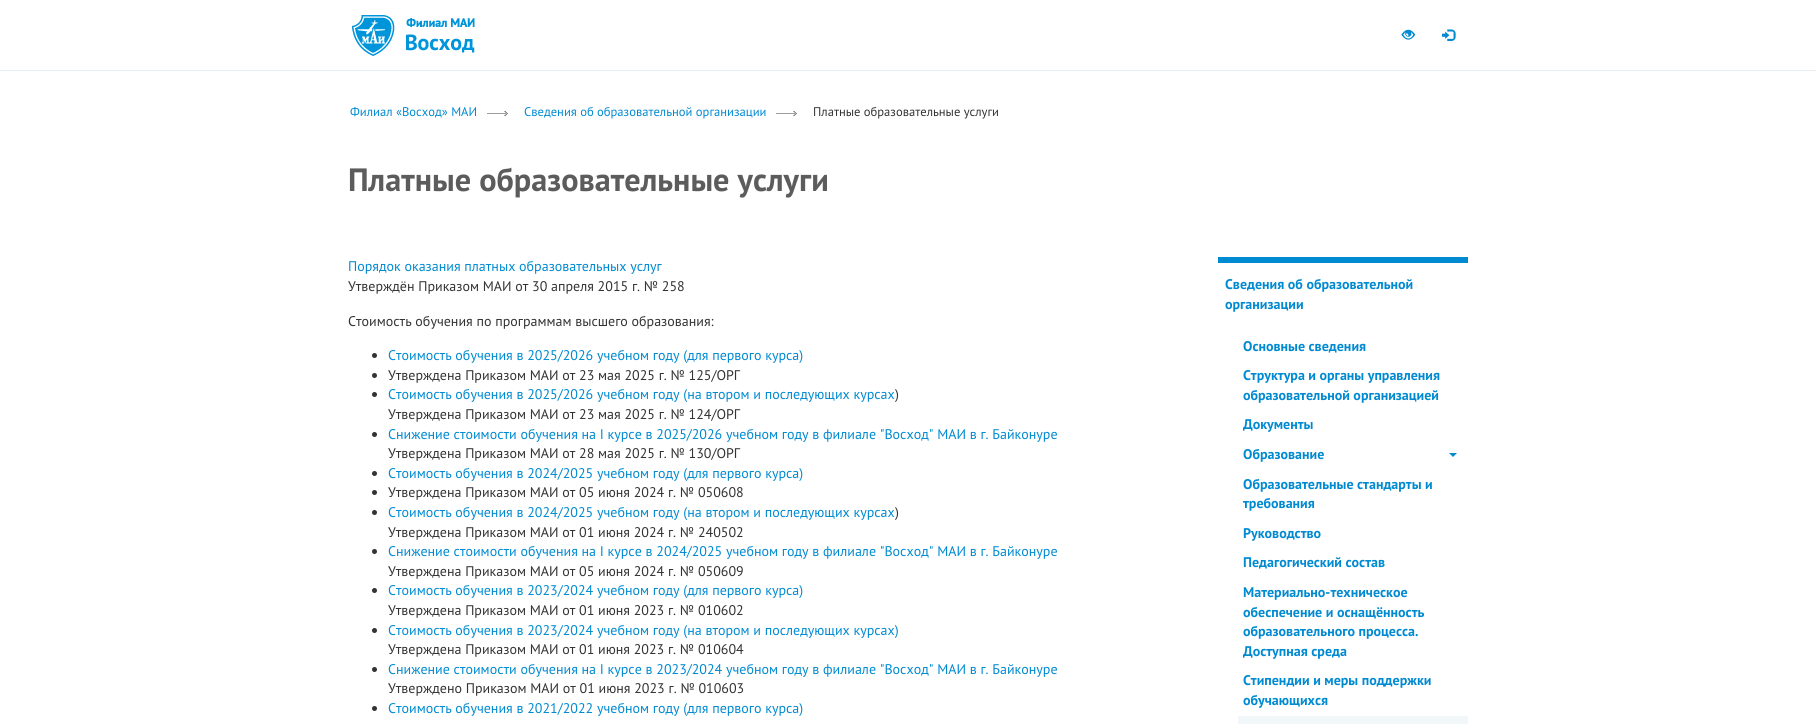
#include <cairo.h>
#include <math.h>
#include <stddef.h>


static void rgb(cairo_t *cr, int r, int g, int b)
{
	cairo_set_source_rgb(cr, r / 255.0, g / 255.0, b / 255.0);
}

static void face(cairo_t *cr, const char *family, double size, int italic, int bold)
{
	cairo_select_font_face(cr, family, italic ? CAIRO_FONT_SLANT_ITALIC : CAIRO_FONT_SLANT_NORMAL,
		bold ? CAIRO_FONT_WEIGHT_BOLD : CAIRO_FONT_WEIGHT_NORMAL);
	cairo_set_font_size(cr, size);
}

static void label(cairo_t *cr, double x, double y, const char *s)
{
	cairo_move_to(cr, x, y);
	cairo_show_text(cr, s);
}

static void rect(cairo_t *cr, double x, double y, double w, double h)
{
	cairo_rectangle(cr, x, y, w, h);
	cairo_fill(cr);
}

static void image(cairo_t *cr, const char *path, double x, double y, double w, double h)
{
	cairo_surface_t *image = cairo_image_surface_create_from_png(path);
	cairo_save(cr);
	cairo_set_source_surface(cr, image, x, y);
	cairo_rectangle(cr, x, y, w, h);
	cairo_fill(cr);
	cairo_restore(cr);
	cairo_surface_destroy(image);
}

static void draw(cairo_t *cr) {
	rgb(cr, 255, 255, 255);
	cairo_paint(cr);
	image(cr, "image0.png", 352, 15, 43, 41);
	image(cr, "image1.png", 406, 18, 69, 35);
	image(cr, "image2.png", 1401, 29, 15, 11);
	image(cr, "image3.png", 1442, 29, 14, 12);
	rgb(cr, 230, 238, 242);
	rect(cr, 0, 70, 1816, 1);
	face(cr, "PT Sans", 12.6, 0, 0);
	rgb(cr, 0, 138, 209);
	label(cr, 350, 116, "Филиал «Восход» МАИ");
	image(cr, "image4.png", 487, 111, 21, 5);
	label(cr, 524, 116, "Сведения об образовательной организации");
	image(cr, "image4.png", 776, 111, 21, 5);
	rgb(cr, 51, 51, 51);
	label(cr, 813, 116, "Платные образовательные услуги");
	face(cr, "PT Sans", 32.25, 0, 1);
	rgb(cr, 92, 92, 92);
	label(cr, 348, 191, "Платные образовательные услуги");
	face(cr, "PT Sans", 14, 0, 0);
	rgb(cr, 0, 138, 209);
	label(cr, 348, 271, "Порядок оказания платных образовательных услуг");
	rgb(cr, 51, 51, 51);
	label(cr, 348, 291, "Утверждён Приказом МАИ от 30 апреля 2015 г. № 258");
	label(cr, 348, 326, "Стоимость обучения по программам высшего образования:");
	cairo_new_path(cr);
	cairo_arc(cr, 374.5, 355.5, 2.5, 0, 2 * M_PI);
	cairo_fill(cr);
	rgb(cr, 0, 138, 209);
	label(cr, 388, 360, "Стоимость обучения в 2025/2026 учебном году (для первого курса)");
	rgb(cr, 51, 51, 51);
	cairo_new_path(cr);
	cairo_arc(cr, 374.5, 375.5, 2.5, 0, 2 * M_PI);
	cairo_fill(cr);
	label(cr, 388, 380, "Утверждена Приказом МАИ от 23 мая 2025 г. № 125/ОРГ");
	cairo_new_path(cr);
	cairo_arc(cr, 374.5, 394.5, 2.5, 0, 2 * M_PI);
	cairo_fill(cr);
	rgb(cr, 0, 138, 209);
	label(cr, 388, 399, "Стоимость обучения в 2025/2026 учебном году (на втором и последующих курсах");
	rgb(cr, 51, 51, 51);
	label(cr, 895, 399, ")");
	label(cr, 388, 419, "Утверждена Приказом МАИ от 23 мая 2025 г. № 124/ОРГ");
	cairo_new_path(cr);
	cairo_arc(cr, 374.5, 434.5, 2.5, 0, 2 * M_PI);
	cairo_fill(cr);
	rgb(cr, 0, 138, 209);
	label(cr, 388, 439, "Снижение стоимости обучения на I курсе в 2025/2026 учебном году в филиале \"Восход\" МАИ в г. Байконуре");
	rgb(cr, 51, 51, 51);
	label(cr, 388, 458, "Утверждена Приказом МАИ от 28 мая 2025 г. № 130/ОРГ");
	cairo_new_path(cr);
	cairo_arc(cr, 374.5, 473.5, 2.5, 0, 2 * M_PI);
	cairo_fill(cr);
	rgb(cr, 0, 138, 209);
	label(cr, 388, 478, "Стоимость обучения в 2024/2025 учебном году (для первого курса)");
	rgb(cr, 51, 51, 51);
	cairo_new_path(cr);
	cairo_arc(cr, 374.5, 492.5, 2.5, 0, 2 * M_PI);
	cairo_fill(cr);
	label(cr, 388, 497, "Утверждена Приказом МАИ от 05 июня 2024 г. № 050608");
	cairo_new_path(cr);
	cairo_arc(cr, 374.5, 512.5, 2.5, 0, 2 * M_PI);
	cairo_fill(cr);
	rgb(cr, 0, 138, 209);
	label(cr, 388, 517, "Стоимость обучения в 2024/2025 учебном году (на втором и последующих курсах");
	rgb(cr, 51, 51, 51);
	label(cr, 895, 517, ")");
	label(cr, 388, 537, "Утверждена Приказом МАИ от 01 июня 2024 г. № 240502");
	cairo_new_path(cr);
	cairo_arc(cr, 374.5, 551.5, 2.5, 0, 2 * M_PI);
	cairo_fill(cr);
	rgb(cr, 0, 138, 209);
	label(cr, 388, 556, "Снижение стоимости обучения на I курсе в 2024/2025 учебном году в филиале \"Восход\" МАИ в г. Байконуре");
	rgb(cr, 51, 51, 51);
	label(cr, 388, 576, "Утверждена Приказом МАИ от 05 июня 2024 г. № 050609");
	cairo_new_path(cr);
	cairo_arc(cr, 374.5, 590.5, 2.5, 0, 2 * M_PI);
	cairo_fill(cr);
	rgb(cr, 0, 138, 209);
	label(cr, 388, 595, "Стоимость обучения в 2023/2024 учебном году (для первого курса)");
	rgb(cr, 51, 51, 51);
	label(cr, 388, 615, "Утверждена Приказом МАИ от 01 июня 2023 г. № 010602");
	cairo_new_path(cr);
	cairo_arc(cr, 374.5, 630.5, 2.5, 0, 2 * M_PI);
	cairo_fill(cr);
	rgb(cr, 0, 138, 209);
	label(cr, 388, 635, "Стоимость обучения в 2023/2024 учебном году (на втором и последующих курсах)");
	rgb(cr, 51, 51, 51);
	label(cr, 388, 654, "Утверждена Приказом МАИ от 01 июня 2023 г. № 010604");
	cairo_new_path(cr);
	cairo_arc(cr, 374.5, 669.5, 2.5, 0, 2 * M_PI);
	cairo_fill(cr);
	rgb(cr, 0, 138, 209);
	label(cr, 388, 674, "Снижение стоимости обучения на I курсе в 2023/2024 учебном году в филиале \"Восход\" МАИ в г. Байконуре");
	rgb(cr, 51, 51, 51);
	label(cr, 388, 693, "Утверждено Приказом МАИ от 01 июня 2023 г. № 010603");
	cairo_new_path(cr);
	cairo_arc(cr, 374.5, 708.5, 2.5, 0, 2 * M_PI);
	cairo_fill(cr);
	rgb(cr, 0, 138, 209);
	label(cr, 388, 713, "Стоимость обучения в 2021/2022 учебном году (для первого курса)");
	rect(cr, 1218, 257, 250, 6);
	face(cr, "PT Sans", 14, 0, 1);
	label(cr, 1225, 289, "Сведения об образовательной");
	label(cr, 1225, 309, "организации");
	label(cr, 1243, 351, "Основные сведения");
	label(cr, 1243, 380, "Структура и органы управления");
	label(cr, 1243, 400, "образовательной организацией");
	label(cr, 1243, 429, "Документы");
	label(cr, 1243, 459, "Образование");
	cairo_new_path(cr);
	cairo_move_to(cr, 1449, 453);
	cairo_line_to(cr, 1457, 453);
	cairo_line_to(cr, 1453, 457);
	cairo_close_path(cr);
	cairo_fill(cr);
	label(cr, 1243, 489, "Образовательные стандарты и");
	label(cr, 1243, 508, "требования");
	label(cr, 1243, 538, "Руководство");
	label(cr, 1243, 567, "Педагогический состав");
	label(cr, 1243, 597, "Материально-техническое");
	label(cr, 1243, 617, "обеспечение и оснащённость");
	label(cr, 1243, 636, "образовательного процесса.");
	label(cr, 1243, 656, "Доступная среда");
	label(cr, 1243, 685, "Стипендии и меры поддержки");
	label(cr, 1243, 705, "обучающихся");
	rgb(cr, 242, 247, 249);
	rect(cr, 1238, 716, 230, 8);
}

int main(void) {
	cairo_surface_t *surface = cairo_image_surface_create(CAIRO_FORMAT_RGB24, 1816, 724);
	cairo_t *cr = cairo_create(surface);
	cairo_font_options_t *options = cairo_font_options_create();
	cairo_font_options_set_hint_metrics(options, CAIRO_HINT_METRICS_OFF);
	cairo_font_options_set_hint_style(options, CAIRO_HINT_STYLE_NONE);
	cairo_set_font_options(cr, options);
	cairo_set_miter_limit(cr, 4);
	draw(cr);
	cairo_surface_write_to_png(surface, "render.png");
	cairo_font_options_destroy(options);
	cairo_destroy(cr);
	cairo_surface_destroy(surface);
	return 0;
}
